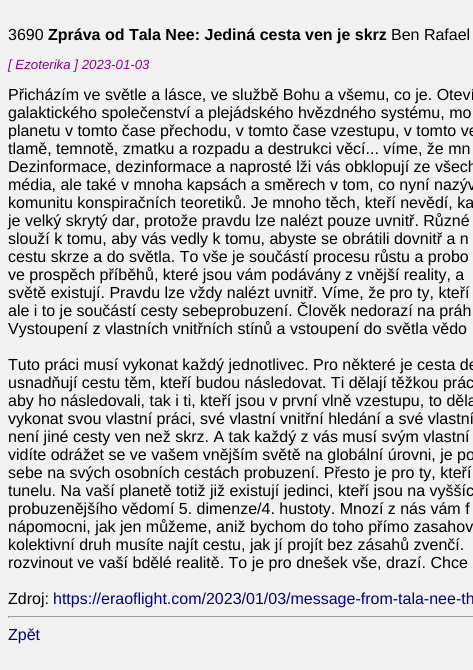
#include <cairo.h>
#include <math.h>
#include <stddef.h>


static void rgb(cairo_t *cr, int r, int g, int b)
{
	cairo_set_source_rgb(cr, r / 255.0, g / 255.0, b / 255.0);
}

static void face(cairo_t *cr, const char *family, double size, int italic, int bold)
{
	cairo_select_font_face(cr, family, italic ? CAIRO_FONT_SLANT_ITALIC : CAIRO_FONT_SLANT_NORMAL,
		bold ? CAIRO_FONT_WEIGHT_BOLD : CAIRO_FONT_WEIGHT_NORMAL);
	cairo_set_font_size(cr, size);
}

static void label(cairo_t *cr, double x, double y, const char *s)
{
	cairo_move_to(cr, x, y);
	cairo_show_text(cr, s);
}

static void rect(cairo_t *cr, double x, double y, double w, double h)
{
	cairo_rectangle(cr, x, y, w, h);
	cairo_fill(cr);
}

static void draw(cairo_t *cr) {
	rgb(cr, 241, 241, 241);
	cairo_paint(cr);
	face(cr, "Liberation Sans", 16, 0, 0);
	rgb(cr, 0, 0, 0);
	label(cr, 8, 40, "3690");
	face(cr, "Liberation Sans", 16, 0, 1);
	label(cr, 48, 40, "Zpráva od Tala Nee: Jediná cesta ven je skrz");
	face(cr, "Liberation Sans", 16, 0, 0);
	label(cr, 391, 40, "Ben Rafael");
	face(cr, "Liberation Sans", 13.25, 1, 0);
	rgb(cr, 139, 0, 139);
	label(cr, 8, 69, "[ Ezoterika ] 2023-01-03");
	face(cr, "Liberation Sans", 16, 0, 0);
	rgb(cr, 0, 0, 0);
	label(cr, 8, 100, "Přicházím ve světle a lásce, ve službě Bohu a všemu, co je. Oteví");
	label(cr, 8, 118, "galaktického společenství a plejádského hvězdného systému, mo");
	label(cr, 8, 136, "planetu v tomto čase přechodu, v tomto čase vzestupu, v tomto ve");
	label(cr, 8, 154, "tlamě, temnotě, zmatku a rozpadu a destrukci věcí... víme, že mn");
	label(cr, 8, 172, "Dezinformace, dezinformace a naprosté lži vás obklopují ze všech");
	label(cr, 8, 190, "média, ale také v mnoha kapsách a směrech v tom, co nyní nazýv");
	label(cr, 8, 208, "komunitu konspiračních teoretiků. Je mnoho těch, kteří nevědí, ka");
	label(cr, 8, 226, "je velký skrytý dar, protože pravdu lze nalézt pouze uvnitř. Různé");
	label(cr, 8, 244, "slouží k tomu, aby vás vedly k tomu, abyste se obrátili dovnitř a n");
	label(cr, 8, 262, "cestu skrze a do světla. To vše je součástí procesu růstu a probo");
	label(cr, 8, 280, "ve prospěch příběhů, které jsou vám podávány z vnější reality, a");
	label(cr, 8, 298, "světě existují. Pravdu lze vždy nalézt uvnitř. Víme, že pro ty, kteří");
	label(cr, 8, 316, "ale i to je součástí cesty sebeprobuzení. Člověk nedorazí na práh");
	label(cr, 8, 334, "Vystoupení z vlastních vnitřních stínů a vstoupení do světla vědo");
	label(cr, 8, 370, "Tuto práci musí vykonat každý jednotlivec. Pro některé je cesta de");
	label(cr, 8, 388, "usnadňují cestu těm, kteří budou následovat. Ti dělají těžkou prác");
	label(cr, 8, 406, "aby ho následovali, tak i ti, kteří jsou v první vlně vzestupu, to děla");
	label(cr, 8, 424, "vykonat svou vlastní práci, své vlastní vnitřní hledání a své vlastní");
	label(cr, 8, 442, "není jiné cesty ven než skrz. A tak každý z vás musí svým vlastní");
	label(cr, 8, 460, "vidíte odrážet se ve vašem vnějším světě na globální úrovni, je po");
	label(cr, 8, 478, "sebe na svých osobních cestách probuzení. Přesto je pro ty, kteří");
	label(cr, 8, 496, "tunelu. Na vaší planetě totiž již existují jedinci, kteří jsou na vyššíc");
	label(cr, 8, 514, "probuzenějšího vědomí 5. dimenze/4. hustoty. Mnozí z nás vám f");
	label(cr, 8, 532, "nápomocni, jak jen můžeme, aniž bychom do toho přímo zasahov");
	label(cr, 8, 550, "kolektivní druh musíte najít cestu, jak jí projít bez zásahů zvenčí.");
	label(cr, 8, 568, "rozvinout ve vaší bdělé realitě. To je pro dnešek vše, drazí. Chce");
	label(cr, 8, 604, "Zdroj:");
	rgb(cr, 0, 0, 128);
	label(cr, 53, 604, "https://eraoflight.com/2023/01/03/message-from-tala-nee-th");
	rgb(cr, 159, 159, 159);
	rect(cr, 8, 616, 465, 1);
	rgb(cr, 238, 238, 238);
	rect(cr, 8, 617, 465, 1);
	rgb(cr, 159, 159, 159);
	rect(cr, 8, 616, 1, 2);
	rgb(cr, 0, 0, 128);
	label(cr, 8, 640, "Zpět");
}

int main(void) {
	cairo_surface_t *surface = cairo_image_surface_create(CAIRO_FORMAT_RGB24, 473, 670);
	cairo_t *cr = cairo_create(surface);
	cairo_font_options_t *options = cairo_font_options_create();
	cairo_font_options_set_hint_metrics(options, CAIRO_HINT_METRICS_OFF);
	cairo_font_options_set_hint_style(options, CAIRO_HINT_STYLE_NONE);
	cairo_set_font_options(cr, options);
	cairo_set_miter_limit(cr, 4);
	draw(cr);
	cairo_surface_write_to_png(surface, "render.png");
	cairo_font_options_destroy(options);
	cairo_destroy(cr);
	cairo_surface_destroy(surface);
	return 0;
}
